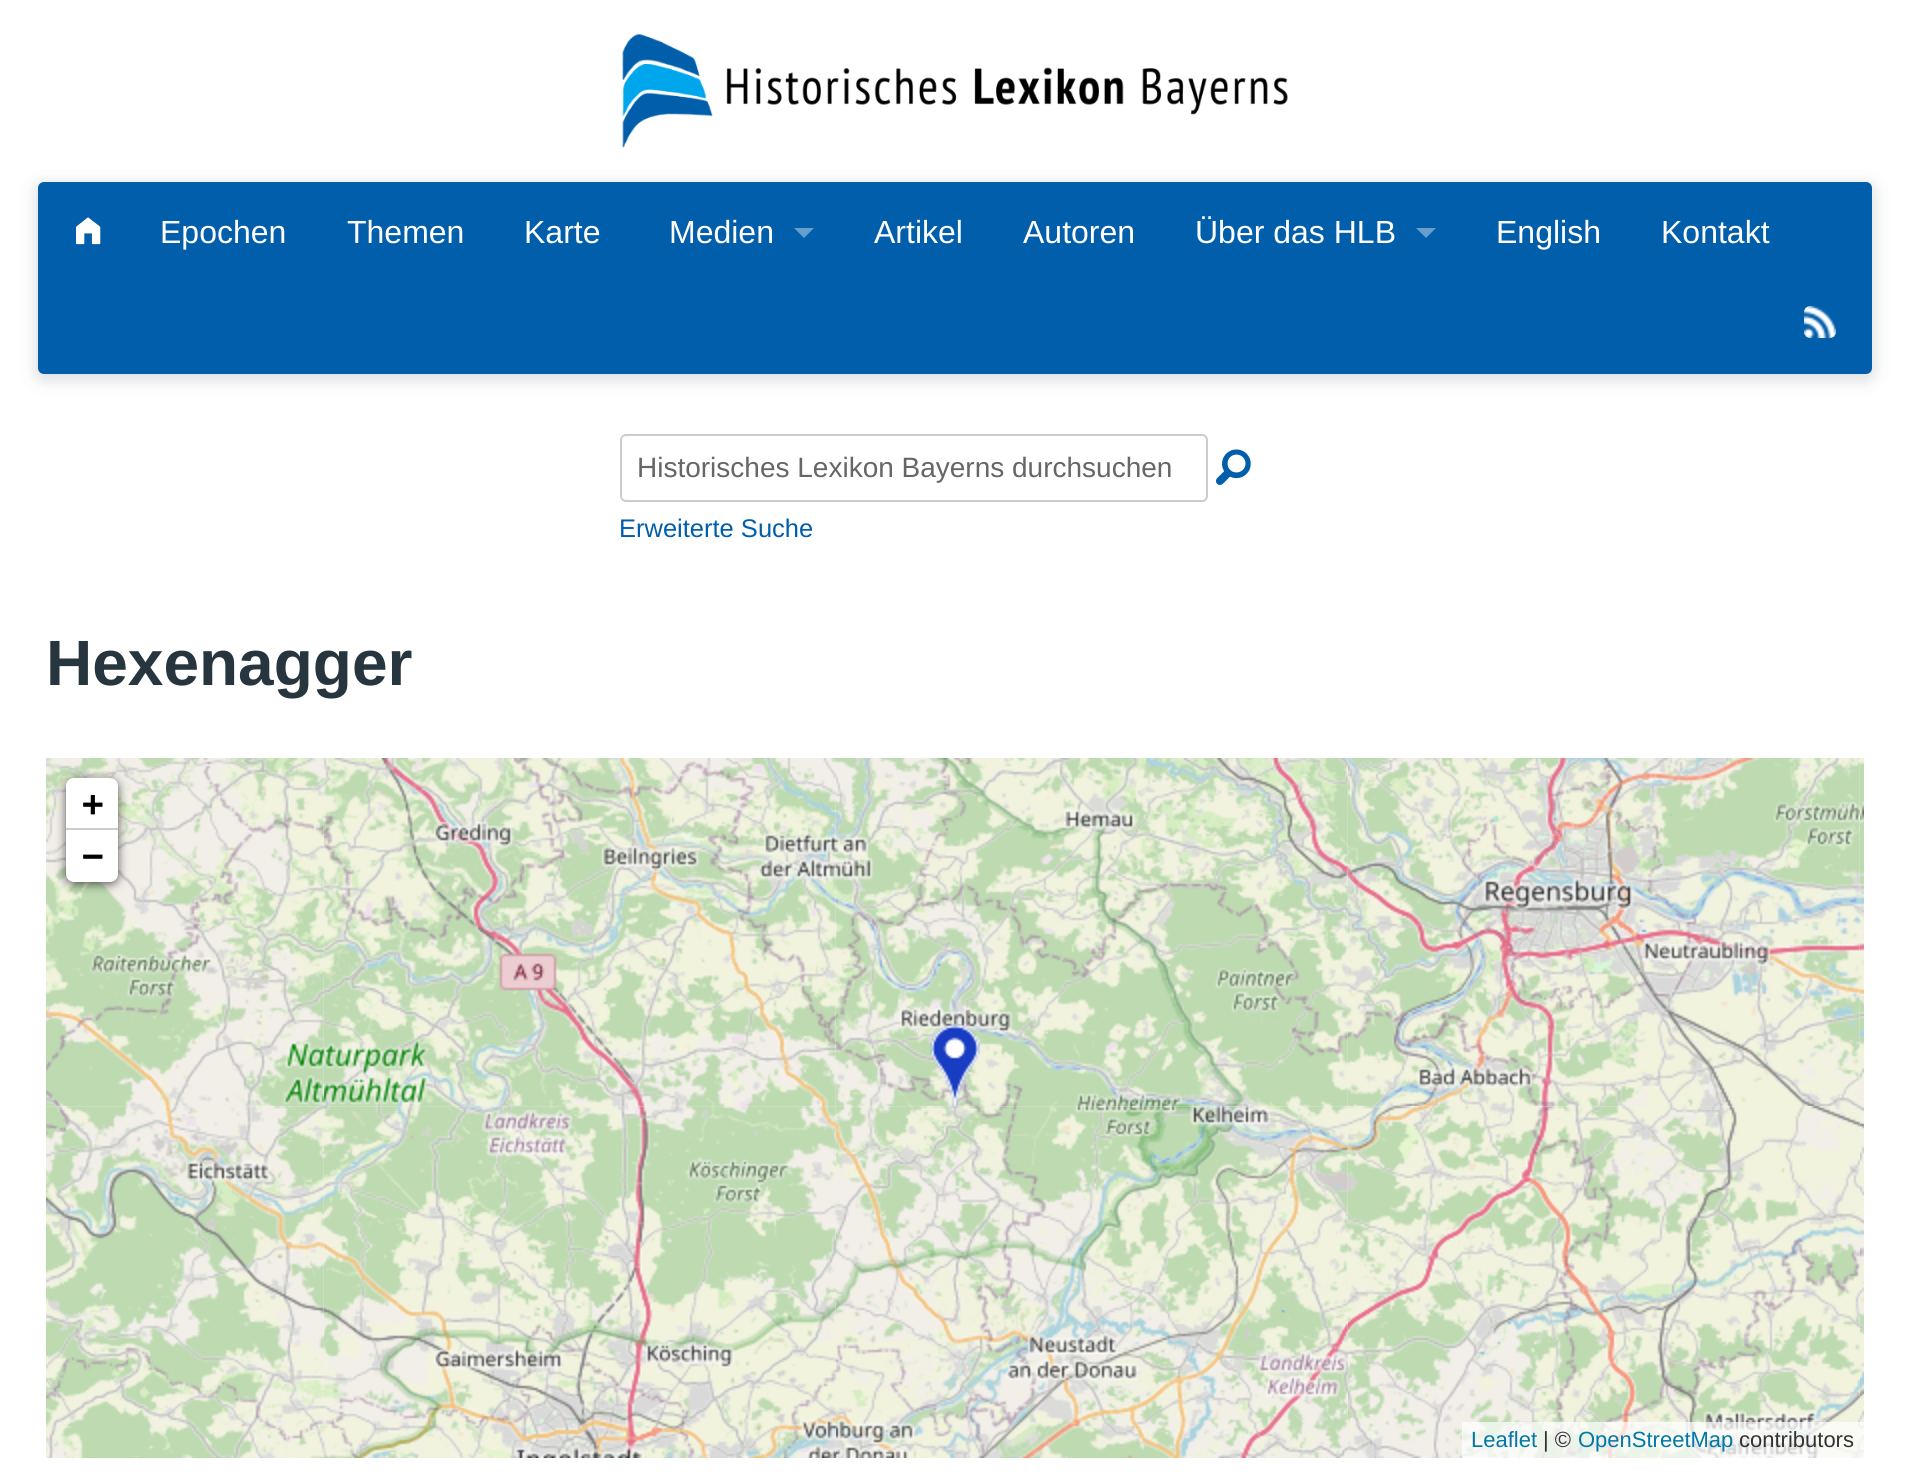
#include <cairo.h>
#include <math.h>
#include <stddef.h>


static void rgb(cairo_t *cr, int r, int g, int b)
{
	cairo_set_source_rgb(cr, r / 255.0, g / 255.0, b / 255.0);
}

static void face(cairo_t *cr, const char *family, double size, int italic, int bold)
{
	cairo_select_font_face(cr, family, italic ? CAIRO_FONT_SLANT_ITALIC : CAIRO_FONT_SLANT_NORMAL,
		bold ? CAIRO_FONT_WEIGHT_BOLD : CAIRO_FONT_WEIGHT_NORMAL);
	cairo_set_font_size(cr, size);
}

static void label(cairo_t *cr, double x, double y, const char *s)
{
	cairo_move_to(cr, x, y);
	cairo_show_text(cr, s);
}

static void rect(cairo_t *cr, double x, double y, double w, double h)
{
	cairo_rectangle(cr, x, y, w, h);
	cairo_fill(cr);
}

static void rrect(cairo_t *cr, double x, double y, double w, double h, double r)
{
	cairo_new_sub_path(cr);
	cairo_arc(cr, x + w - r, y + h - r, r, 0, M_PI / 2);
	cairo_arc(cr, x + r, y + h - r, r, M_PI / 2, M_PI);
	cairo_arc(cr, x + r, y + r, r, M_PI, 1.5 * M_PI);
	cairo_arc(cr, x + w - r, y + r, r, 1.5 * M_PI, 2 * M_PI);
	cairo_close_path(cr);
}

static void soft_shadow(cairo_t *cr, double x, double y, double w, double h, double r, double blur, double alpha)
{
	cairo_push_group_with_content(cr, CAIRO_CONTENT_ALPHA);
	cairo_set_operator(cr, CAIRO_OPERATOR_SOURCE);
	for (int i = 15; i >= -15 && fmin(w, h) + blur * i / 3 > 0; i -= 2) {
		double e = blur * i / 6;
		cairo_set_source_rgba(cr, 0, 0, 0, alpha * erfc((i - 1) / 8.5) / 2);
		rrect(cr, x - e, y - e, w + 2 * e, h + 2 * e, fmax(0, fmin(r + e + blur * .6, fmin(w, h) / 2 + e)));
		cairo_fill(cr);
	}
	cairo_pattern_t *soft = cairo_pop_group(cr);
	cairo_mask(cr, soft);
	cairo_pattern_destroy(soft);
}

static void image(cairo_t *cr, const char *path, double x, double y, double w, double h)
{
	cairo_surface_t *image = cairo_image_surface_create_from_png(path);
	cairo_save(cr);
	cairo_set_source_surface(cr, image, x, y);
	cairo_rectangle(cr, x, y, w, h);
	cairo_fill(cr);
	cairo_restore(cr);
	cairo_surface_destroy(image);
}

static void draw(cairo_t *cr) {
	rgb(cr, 255, 255, 255);
	cairo_paint(cr);
	image(cr, "image0.png", 622, 33, 666, 115);
	rgb(cr, 39, 53, 62);
	soft_shadow(cr, 36, 184, 1838, 196, 8, 8, 0.17);
	rgb(cr, 0, 94, 171);
	rrect(cr, 38, 182, 1834, 192, 6);
	cairo_fill(cr);
	image(cr, "image1.png", 76, 217, 25, 28);
	face(cr, "Liberation Sans", 32, 0, 0);
	rgb(cr, 255, 255, 255);
	label(cr, 160, 243, "Epochen");
	label(cr, 347, 243, "Themen");
	label(cr, 524, 243, "Karte");
	label(cr, 669, 243, "Medien");
	rgb(cr, 102, 158, 205);
	cairo_new_path(cr);
	cairo_move_to(cr, 794, 228);
	cairo_line_to(cr, 814, 228);
	cairo_line_to(cr, 804, 238);
	cairo_close_path(cr);
	cairo_fill(cr);
	rgb(cr, 255, 255, 255);
	label(cr, 874, 243, "Artikel");
	label(cr, 1023, 243, "Autoren");
	label(cr, 1195, 243, "Über das HLB");
	rgb(cr, 102, 158, 205);
	cairo_new_path(cr);
	cairo_move_to(cr, 1416, 228);
	cairo_line_to(cr, 1436, 228);
	cairo_line_to(cr, 1426, 238);
	cairo_close_path(cr);
	cairo_fill(cr);
	rgb(cr, 255, 255, 255);
	label(cr, 1496, 243, "English");
	label(cr, 1661, 243, "Kontakt");
	image(cr, "image2.png", 1804, 306, 32, 32);
	rrect(cr, 621, 435, 586, 66, 5);
	rgb(cr, 204, 204, 204);
	cairo_stroke(cr);
	face(cr, "Liberation Sans", 28, 0, 0);
	rgb(cr, 102, 102, 102);
	label(cr, 637, 477, "Historisches Lexikon Bayerns durchsuchen");
	image(cr, "image3.png", 1216, 449, 35, 36);
	face(cr, "Liberation Sans", 25.5, 0, 0);
	rgb(cr, 0, 94, 171);
	label(cr, 619, 537, "Erweiterte Suche");
	face(cr, "Liberation Sans", 64, 0, 1);
	rgb(cr, 39, 53, 62);
	label(cr, 46, 685, "Hexenagger");
	rgb(cr, 238, 238, 238);
	rect(cr, 46, 758, 1818, 700);
	image(cr, "image6.png", 836, 758, 512, 348);
	image(cr, "image11.png", 836, 1105, 513, 353);
	image(cr, "image5.png", 324, 758, 513, 348);
	image(cr, "image10.png", 324, 1105, 513, 353);
	image(cr, "image4.png", 46, 758, 279, 348);
	image(cr, "image7.png", 1348, 758, 512, 348);
	image(cr, "image12.png", 1348, 1105, 513, 353);
	image(cr, "image8.png", 1860, 758, 4, 348);
	image(cr, "image9.png", 46, 1105, 279, 353);
	image(cr, "image13.png", 1860, 1105, 4, 353);
	image(cr, "image14.png", 930, 1024, 50, 84);
	rgb(cr, 0, 0, 0);
	soft_shadow(cr, 66, 780, 52, 104, 8, 5, 0.65);
	rgb(cr, 255, 255, 255);
	cairo_new_path(cr);
	cairo_move_to(cr, 74, 778);
	cairo_line_to(cr, 110, 778);
	cairo_curve_to(cr, 114.5, 778, 118, 781.5, 118, 786);
	cairo_line_to(cr, 118, 830);
	cairo_line_to(cr, 66, 830);
	cairo_line_to(cr, 66, 786);
	cairo_curve_to(cr, 66, 781.5, 69.5, 778, 74, 778);
	cairo_close_path(cr);
	cairo_fill(cr);
	rgb(cr, 204, 204, 204);
	rect(cr, 66, 828, 52, 2);
	face(cr, "DejaVu Sans Mono", 36, 0, 1);
	rgb(cr, 0, 0, 0);
	label(cr, 82, 816, "+");
	rgb(cr, 255, 255, 255);
	cairo_new_path(cr);
	cairo_move_to(cr, 66, 830);
	cairo_line_to(cr, 118, 830);
	cairo_line_to(cr, 118, 874);
	cairo_curve_to(cr, 118, 878.5, 114.5, 882, 110, 882);
	cairo_line_to(cr, 74, 882);
	cairo_curve_to(cr, 69.5, 882, 66, 878.5, 66, 874);
	cairo_close_path(cr);
	cairo_fill(cr);
	rgb(cr, 0, 0, 0);
	label(cr, 82, 868, "−");
	cairo_set_source_rgba(cr, 1, 1, 1, 0.7);
	rect(cr, 1462, 1422, 402, 36);
	face(cr, "Liberation Sans", 22, 0, 0);
	rgb(cr, 0, 120, 168);
	label(cr, 1471, 1447, "Leaflet");
	rgb(cr, 51, 51, 51);
	label(cr, 1543, 1447, "| ©");
	rgb(cr, 0, 120, 168);
	label(cr, 1578, 1447, "OpenStreetMap");
	rgb(cr, 51, 51, 51);
	label(cr, 1739, 1447, "contributors");
}

int main(void) {
	cairo_surface_t *surface = cairo_image_surface_create(CAIRO_FORMAT_RGB24, 1909, 1483);
	cairo_t *cr = cairo_create(surface);
	cairo_font_options_t *options = cairo_font_options_create();
	cairo_font_options_set_hint_metrics(options, CAIRO_HINT_METRICS_OFF);
	cairo_font_options_set_hint_style(options, CAIRO_HINT_STYLE_NONE);
	cairo_set_font_options(cr, options);
	cairo_set_miter_limit(cr, 4);
	draw(cr);
	cairo_surface_write_to_png(surface, "render.png");
	cairo_font_options_destroy(options);
	cairo_destroy(cr);
	cairo_surface_destroy(surface);
	return 0;
}
